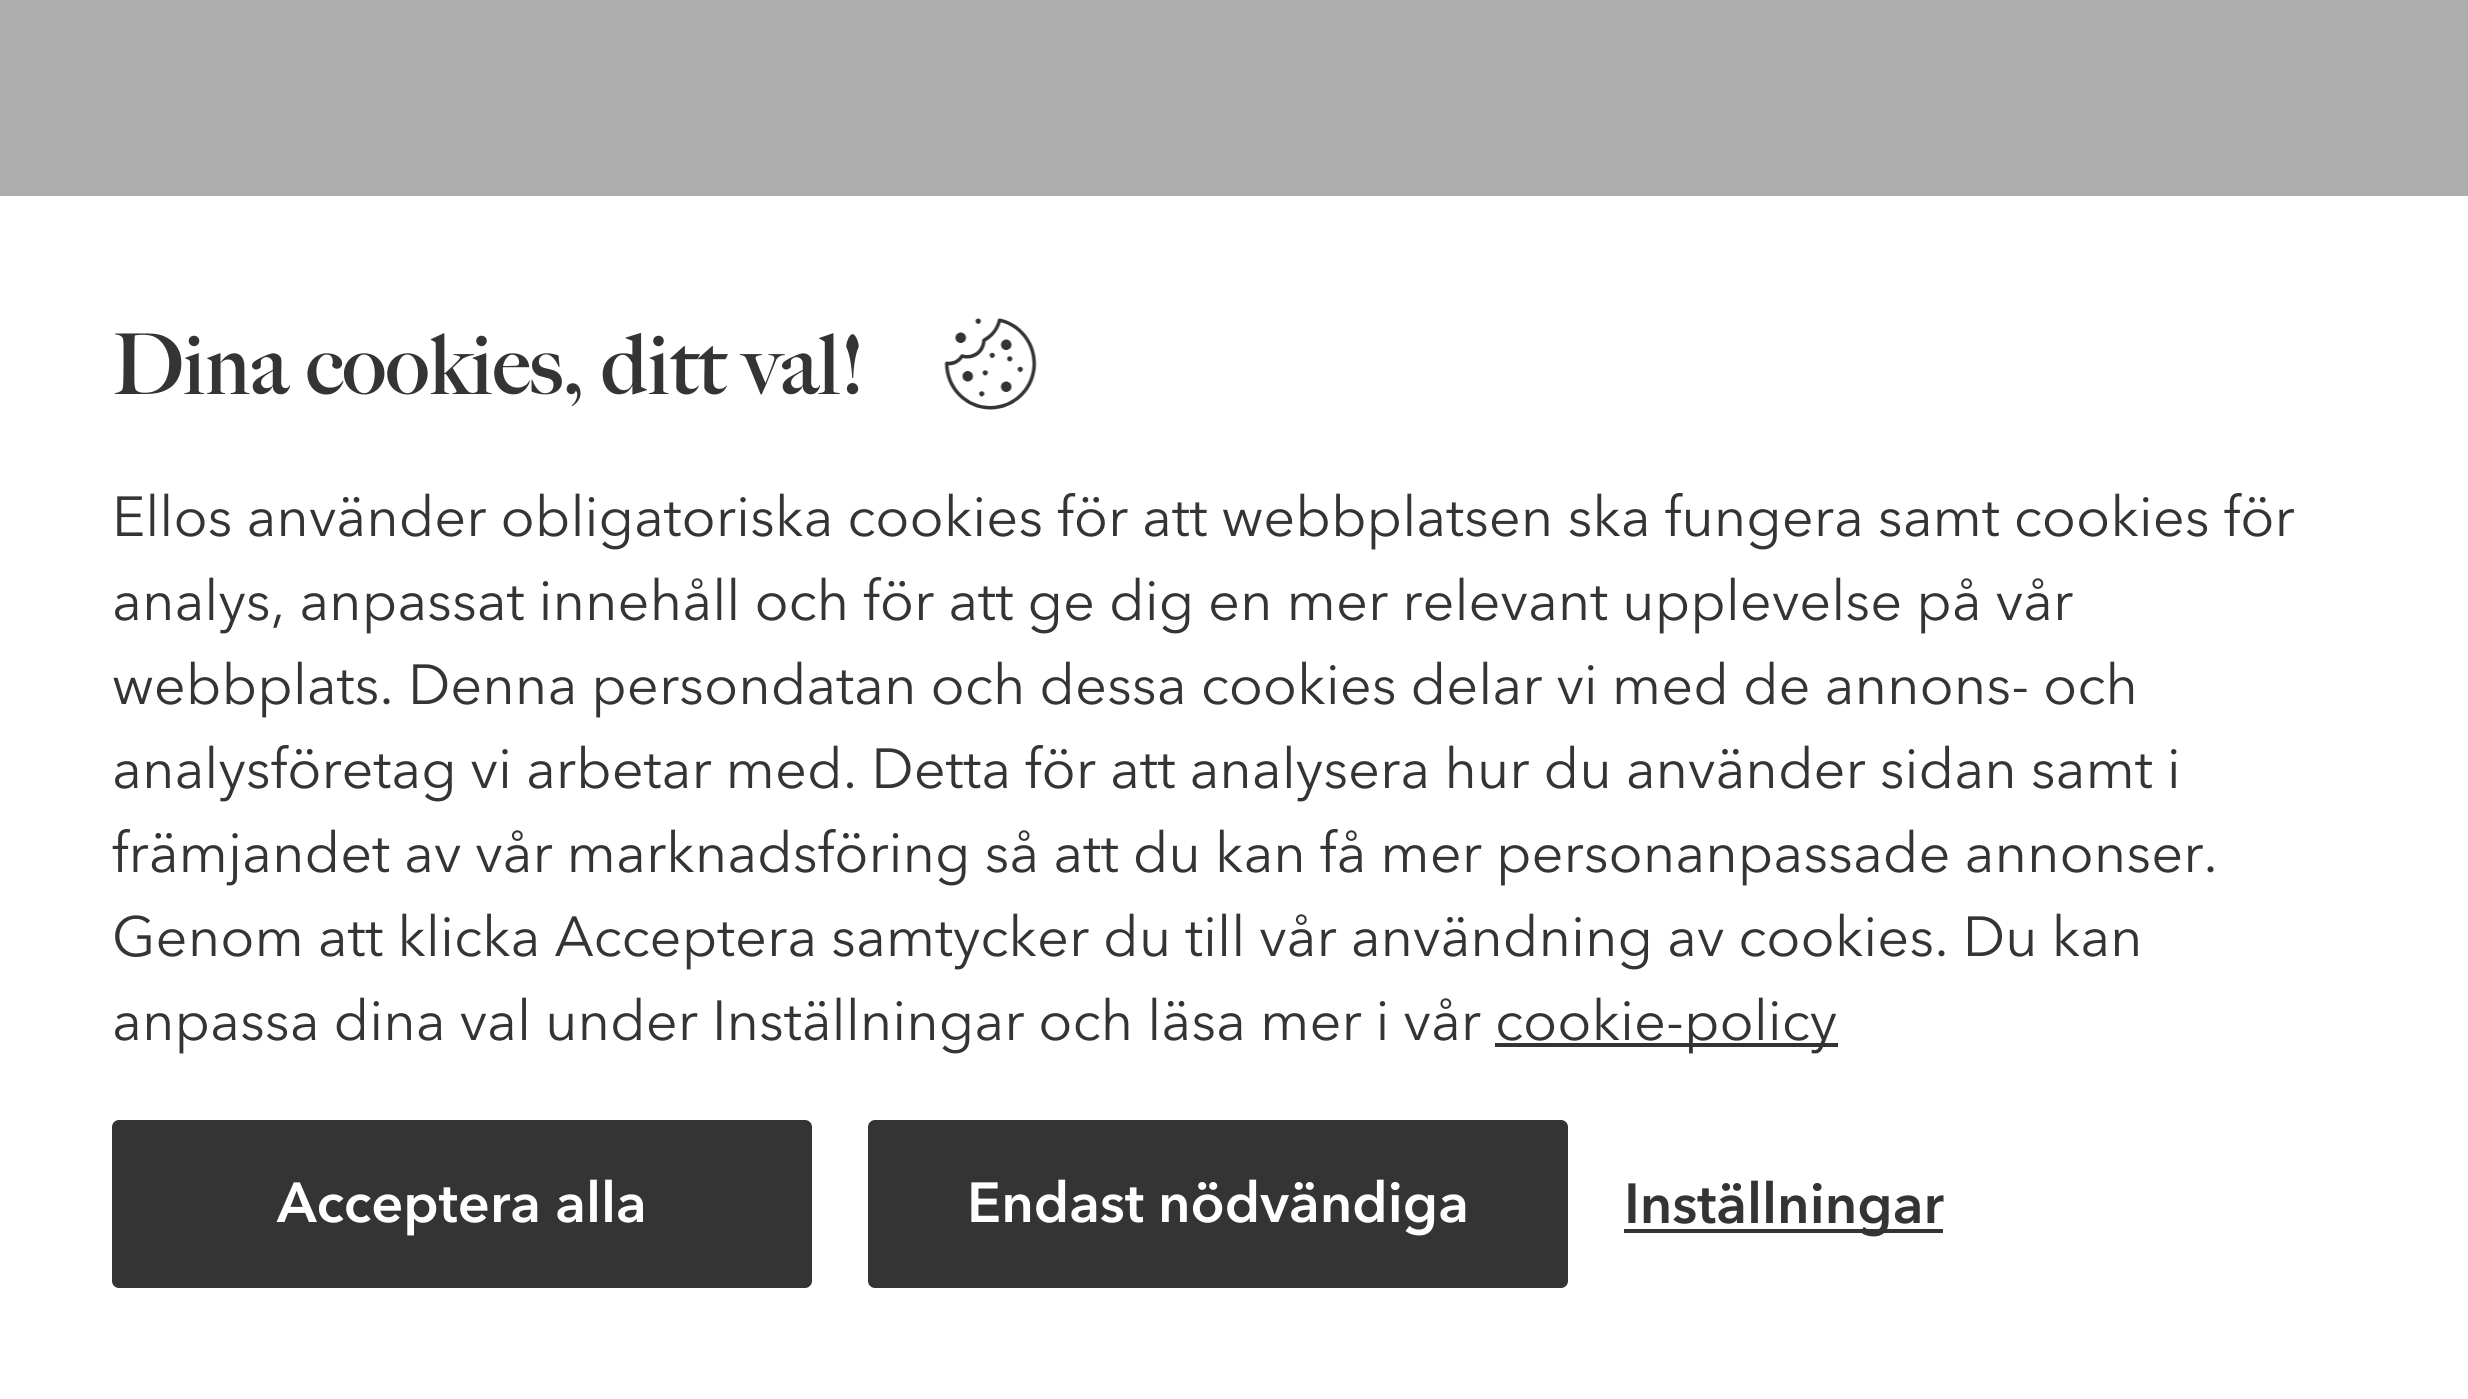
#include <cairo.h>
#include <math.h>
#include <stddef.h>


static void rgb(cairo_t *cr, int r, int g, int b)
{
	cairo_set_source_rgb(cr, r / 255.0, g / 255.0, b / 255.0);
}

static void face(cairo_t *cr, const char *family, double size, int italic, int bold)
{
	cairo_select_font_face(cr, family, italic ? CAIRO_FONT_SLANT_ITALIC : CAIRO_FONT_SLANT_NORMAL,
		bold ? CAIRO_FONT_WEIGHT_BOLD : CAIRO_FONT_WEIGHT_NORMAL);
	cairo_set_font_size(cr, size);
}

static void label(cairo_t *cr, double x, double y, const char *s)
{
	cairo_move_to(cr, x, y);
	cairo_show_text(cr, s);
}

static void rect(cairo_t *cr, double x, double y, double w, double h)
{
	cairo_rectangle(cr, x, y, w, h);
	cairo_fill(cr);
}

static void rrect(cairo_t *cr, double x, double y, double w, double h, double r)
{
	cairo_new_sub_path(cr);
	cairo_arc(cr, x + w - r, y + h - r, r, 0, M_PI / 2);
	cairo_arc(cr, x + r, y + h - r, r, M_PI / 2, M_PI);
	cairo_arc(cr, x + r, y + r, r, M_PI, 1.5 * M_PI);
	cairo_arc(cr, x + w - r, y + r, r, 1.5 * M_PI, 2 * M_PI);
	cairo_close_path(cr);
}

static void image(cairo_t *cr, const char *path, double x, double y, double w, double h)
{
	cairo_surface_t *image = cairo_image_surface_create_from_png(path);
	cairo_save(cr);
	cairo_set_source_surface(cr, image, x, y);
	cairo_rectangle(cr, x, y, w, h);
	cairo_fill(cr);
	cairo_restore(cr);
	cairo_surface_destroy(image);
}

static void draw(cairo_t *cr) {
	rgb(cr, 173, 173, 173);
	cairo_paint(cr);
	rgb(cr, 255, 255, 255);
	rect(cr, 0, 196, 2468, 1203);
	face(cr, "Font", 84, 0, 1);
	rgb(cr, 52, 52, 52);
	label(cr, 112, 394, "Dina cookies, ditt val!");
	image(cr, "image0.png", 944, 318, 93, 92);
	face(cr, "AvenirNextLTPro", 56, 0, 0);
	label(cr, 112, 536, "Ellos använder obligatoriska cookies för att webbplatsen ska fungera samt cookies för");
	label(cr, 112, 620, "analys, anpassat innehåll och för att ge dig en mer relevant upplevelse på vår");
	label(cr, 112, 704, "webbplats. Denna persondatan och dessa cookies delar vi med de annons- och");
	label(cr, 112, 788, "analysföretag vi arbetar med. Detta för att analysera hur du använder sidan samt i");
	label(cr, 112, 872, "främjandet av vår marknadsföring så att du kan få mer personanpassade annonser.");
	label(cr, 112, 956, "Genom att klicka Acceptera samtycker du till vår användning av cookies. Du kan");
	label(cr, 112, 1040, "anpassa dina val under Inställningar och läsa mer i vår");
	rect(cr, 1495, 1043, 343, 4);
	label(cr, 1495, 1040, "cookie-policy");
	rrect(cr, 112, 1120, 700, 168, 7);
	cairo_fill(cr);
	face(cr, "AvenirNextLTPro", 56, 0, 1);
	rgb(cr, 255, 255, 255);
	label(cr, 277, 1222, "Acceptera alla");
	rgb(cr, 52, 52, 52);
	rrect(cr, 868, 1120, 700, 168, 7);
	cairo_fill(cr);
	rgb(cr, 255, 255, 255);
	label(cr, 967, 1222, "Endast nödvändiga");
	rgb(cr, 52, 52, 52);
	rect(cr, 1624, 1229, 319, 4);
	label(cr, 1624, 1223, "Inställningar");
}

int main(void) {
	cairo_surface_t *surface = cairo_image_surface_create(CAIRO_FORMAT_RGB24, 2468, 1399);
	cairo_t *cr = cairo_create(surface);
	cairo_font_options_t *options = cairo_font_options_create();
	cairo_font_options_set_hint_metrics(options, CAIRO_HINT_METRICS_OFF);
	cairo_font_options_set_hint_style(options, CAIRO_HINT_STYLE_NONE);
	cairo_set_font_options(cr, options);
	cairo_set_miter_limit(cr, 4);
	draw(cr);
	cairo_surface_write_to_png(surface, "render.png");
	cairo_font_options_destroy(options);
	cairo_destroy(cr);
	cairo_surface_destroy(surface);
	return 0;
}
